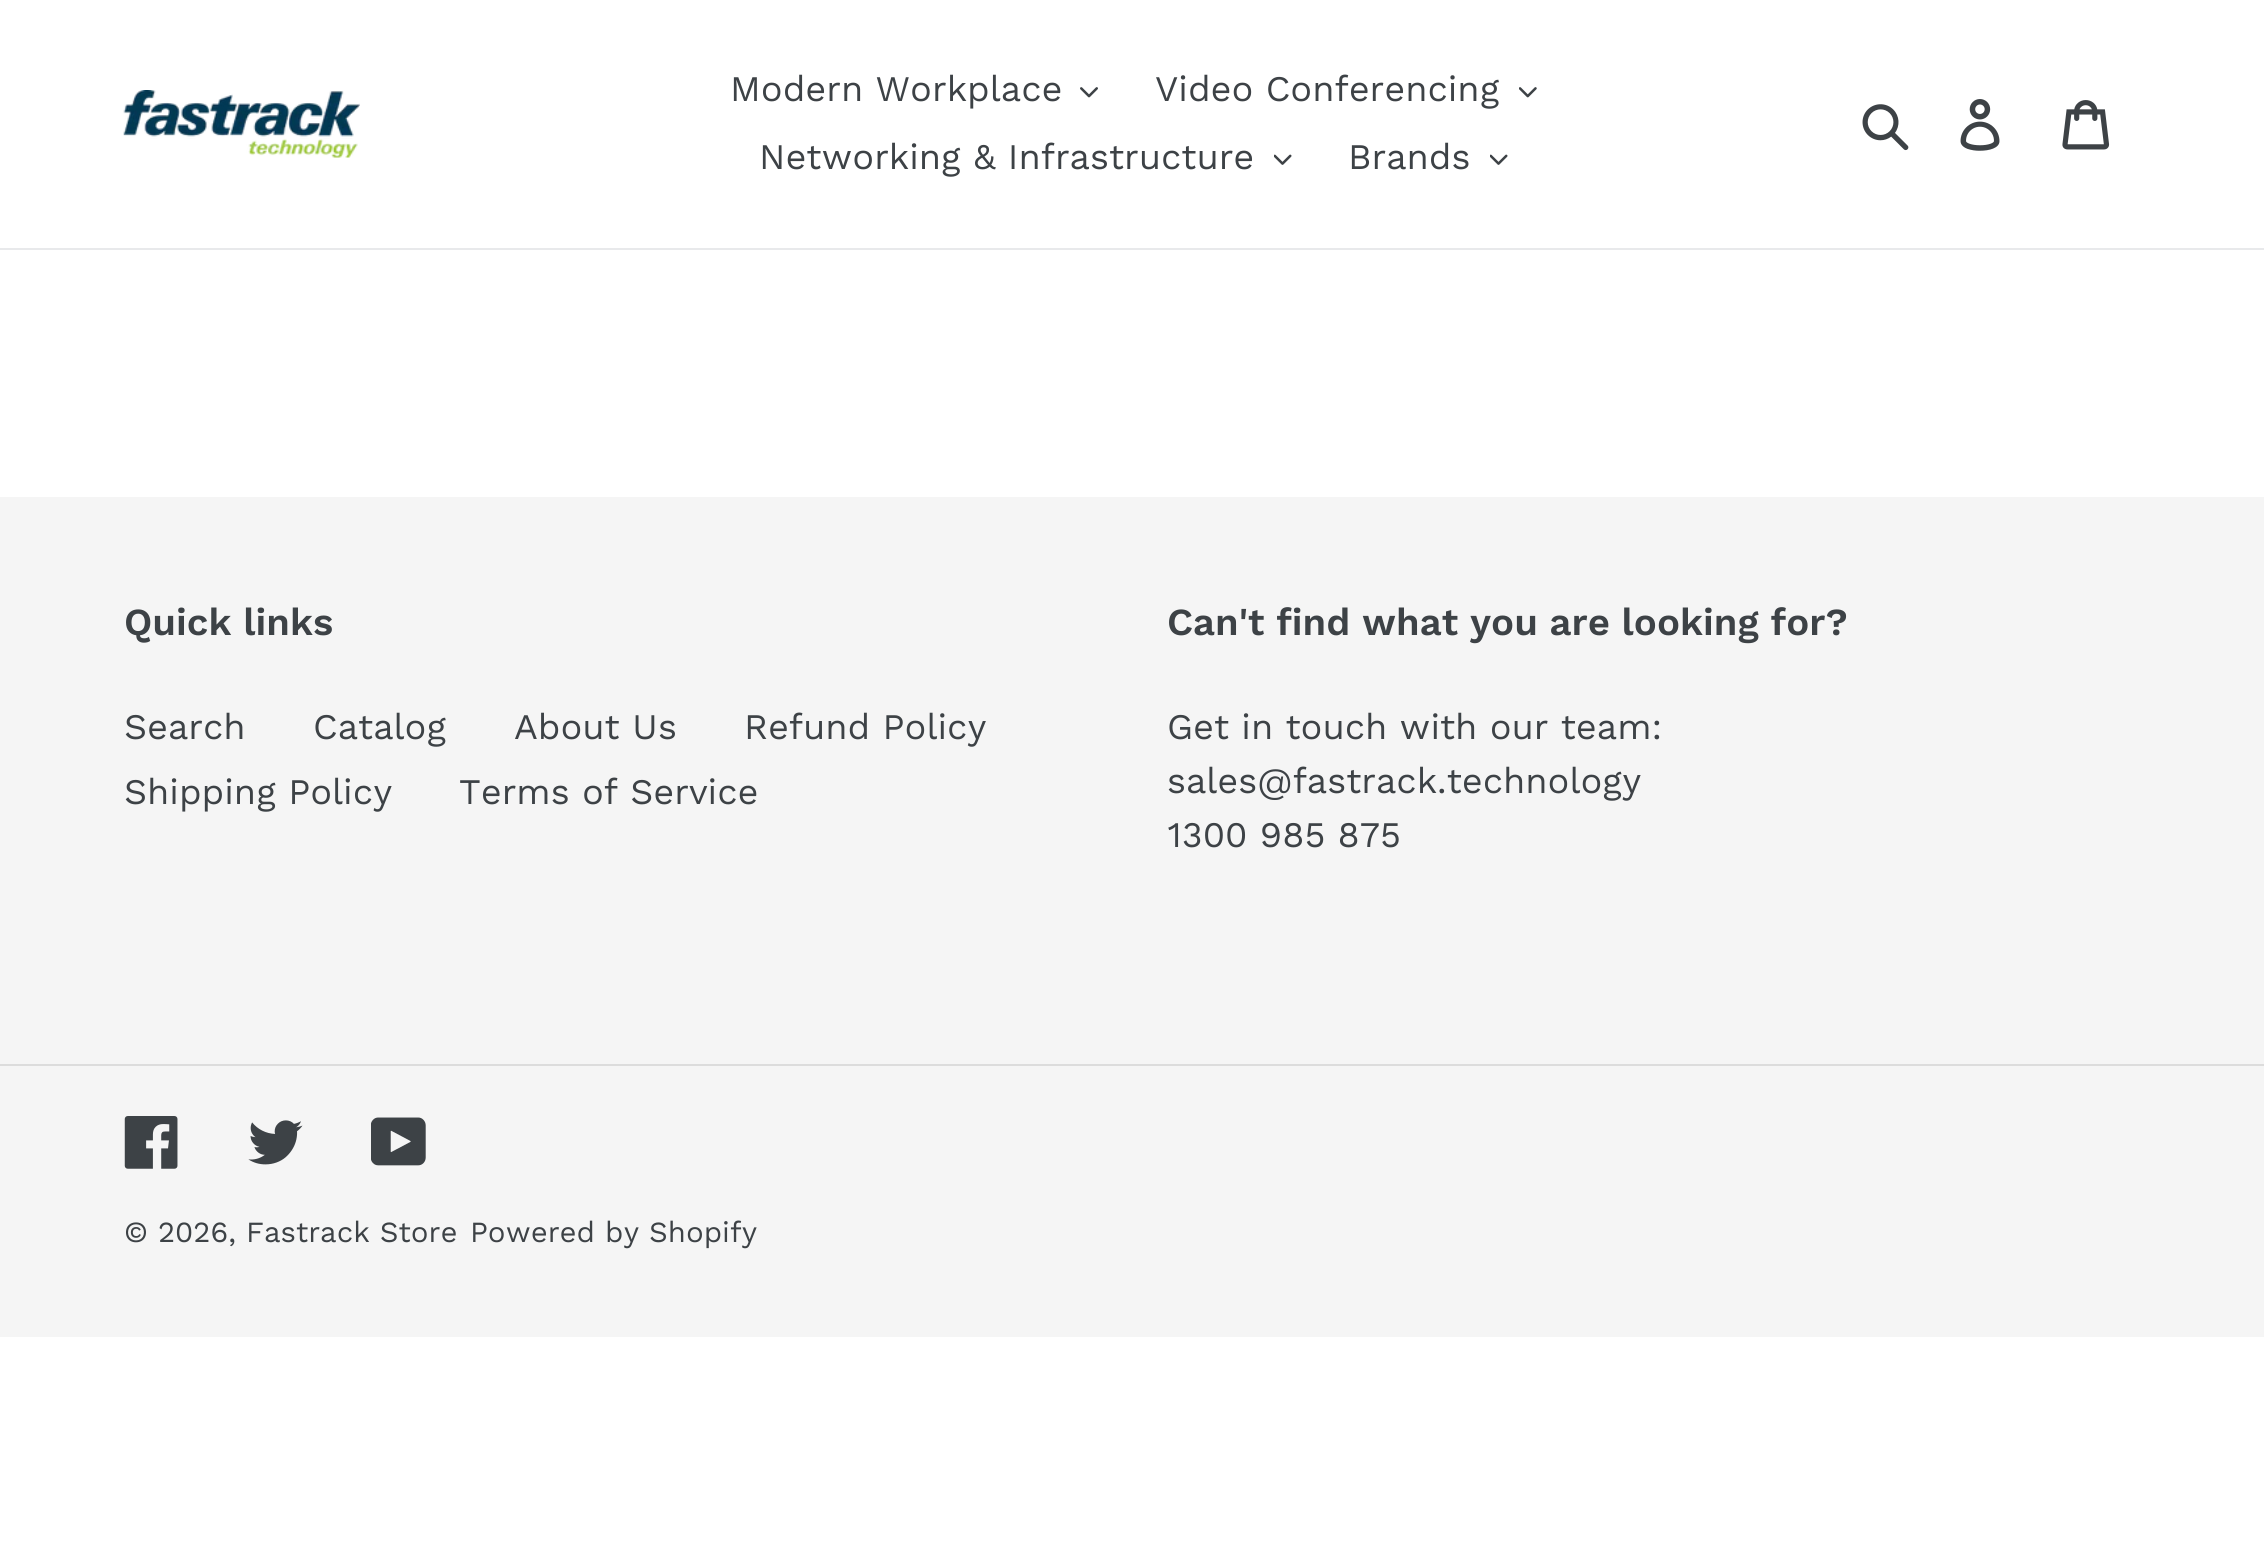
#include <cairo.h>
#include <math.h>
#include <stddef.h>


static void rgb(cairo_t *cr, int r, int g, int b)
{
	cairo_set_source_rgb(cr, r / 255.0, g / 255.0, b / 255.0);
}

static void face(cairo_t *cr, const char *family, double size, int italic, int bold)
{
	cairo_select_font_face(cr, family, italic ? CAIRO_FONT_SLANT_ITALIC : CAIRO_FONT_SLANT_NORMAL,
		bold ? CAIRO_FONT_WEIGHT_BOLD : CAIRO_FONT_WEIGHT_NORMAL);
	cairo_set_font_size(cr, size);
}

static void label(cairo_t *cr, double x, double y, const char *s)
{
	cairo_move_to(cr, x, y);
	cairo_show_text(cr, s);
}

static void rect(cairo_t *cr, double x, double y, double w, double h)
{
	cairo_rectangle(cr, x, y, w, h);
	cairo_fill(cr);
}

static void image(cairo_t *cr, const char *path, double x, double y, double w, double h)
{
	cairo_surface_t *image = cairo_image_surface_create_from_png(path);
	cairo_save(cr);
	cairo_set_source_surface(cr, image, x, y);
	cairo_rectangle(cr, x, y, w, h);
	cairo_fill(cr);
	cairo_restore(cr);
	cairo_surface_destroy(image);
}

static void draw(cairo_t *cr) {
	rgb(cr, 255, 255, 255);
	cairo_paint(cr);
	rgb(cr, 232, 233, 235);
	rect(cr, 0, 248, 2264, 2);
	image(cr, "image0.png", 123, 90, 237, 68);
	face(cr, "Work Sans", 36, 0, 0);
	rgb(cr, 61, 66, 70);
	label(cr, 730, 101, "Modern Workplace");
	image(cr, "image1.png", 1080, 87, 18, 11);
	label(cr, 1155, 101, "Video Conferencing");
	image(cr, "image2.png", 1519, 87, 18, 11);
	label(cr, 759, 169, "Networking & Infrastructure");
	image(cr, "image3.png", 1274, 154, 18, 11);
	label(cr, 1348, 169, "Brands");
	image(cr, "image3.png", 1490, 154, 18, 11);
	image(cr, "image4.png", 1862, 104, 47, 47);
	image(cr, "image5.png", 1960, 99, 40, 52);
	image(cr, "image6.png", 2062, 100, 48, 50);
	rgb(cr, 245, 245, 245);
	rect(cr, 0, 497, 2264, 840);
	face(cr, "Work Sans SemiBold", 38.25, 0, 0);
	rgb(cr, 61, 66, 70);
	label(cr, 124, 635, "Quick links");
	face(cr, "Work Sans", 36, 0, 0);
	label(cr, 124, 739, "Search");
	label(cr, 313, 739, "Catalog");
	label(cr, 514, 739, "About Us");
	label(cr, 744, 739, "Refund Policy");
	label(cr, 124, 804, "Shipping Policy");
	label(cr, 459, 804, "Terms of Service");
	face(cr, "Work Sans SemiBold", 38.25, 0, 0);
	label(cr, 1167, 635, "Can't find what you are looking for?");
	face(cr, "Work Sans", 36, 0, 0);
	label(cr, 1167, 739, "Get in touch with our team:");
	label(cr, 1167, 793, "sales@fastrack.technology");
	label(cr, 1167, 847, "1300 985 875");
	rgb(cr, 220, 220, 220);
	rect(cr, 0, 1064, 2264, 2);
	image(cr, "image7.png", 124, 1116, 54, 53);
	image(cr, "image8.png", 248, 1120, 55, 45);
	image(cr, "image9.png", 371, 1117, 55, 49);
	face(cr, "Work Sans", 29.25, 0, 0);
	rgb(cr, 61, 66, 70);
	label(cr, 124, 1242, "© 2026, Fastrack Store");
	label(cr, 470, 1242, "Powered by Shopify");
}

int main(void) {
	cairo_surface_t *surface = cairo_image_surface_create(CAIRO_FORMAT_RGB24, 2264, 1553);
	cairo_t *cr = cairo_create(surface);
	cairo_font_options_t *options = cairo_font_options_create();
	cairo_font_options_set_hint_metrics(options, CAIRO_HINT_METRICS_OFF);
	cairo_font_options_set_hint_style(options, CAIRO_HINT_STYLE_NONE);
	cairo_set_font_options(cr, options);
	cairo_set_miter_limit(cr, 4);
	draw(cr);
	cairo_surface_write_to_png(surface, "render.png");
	cairo_font_options_destroy(options);
	cairo_destroy(cr);
	cairo_surface_destroy(surface);
	return 0;
}
